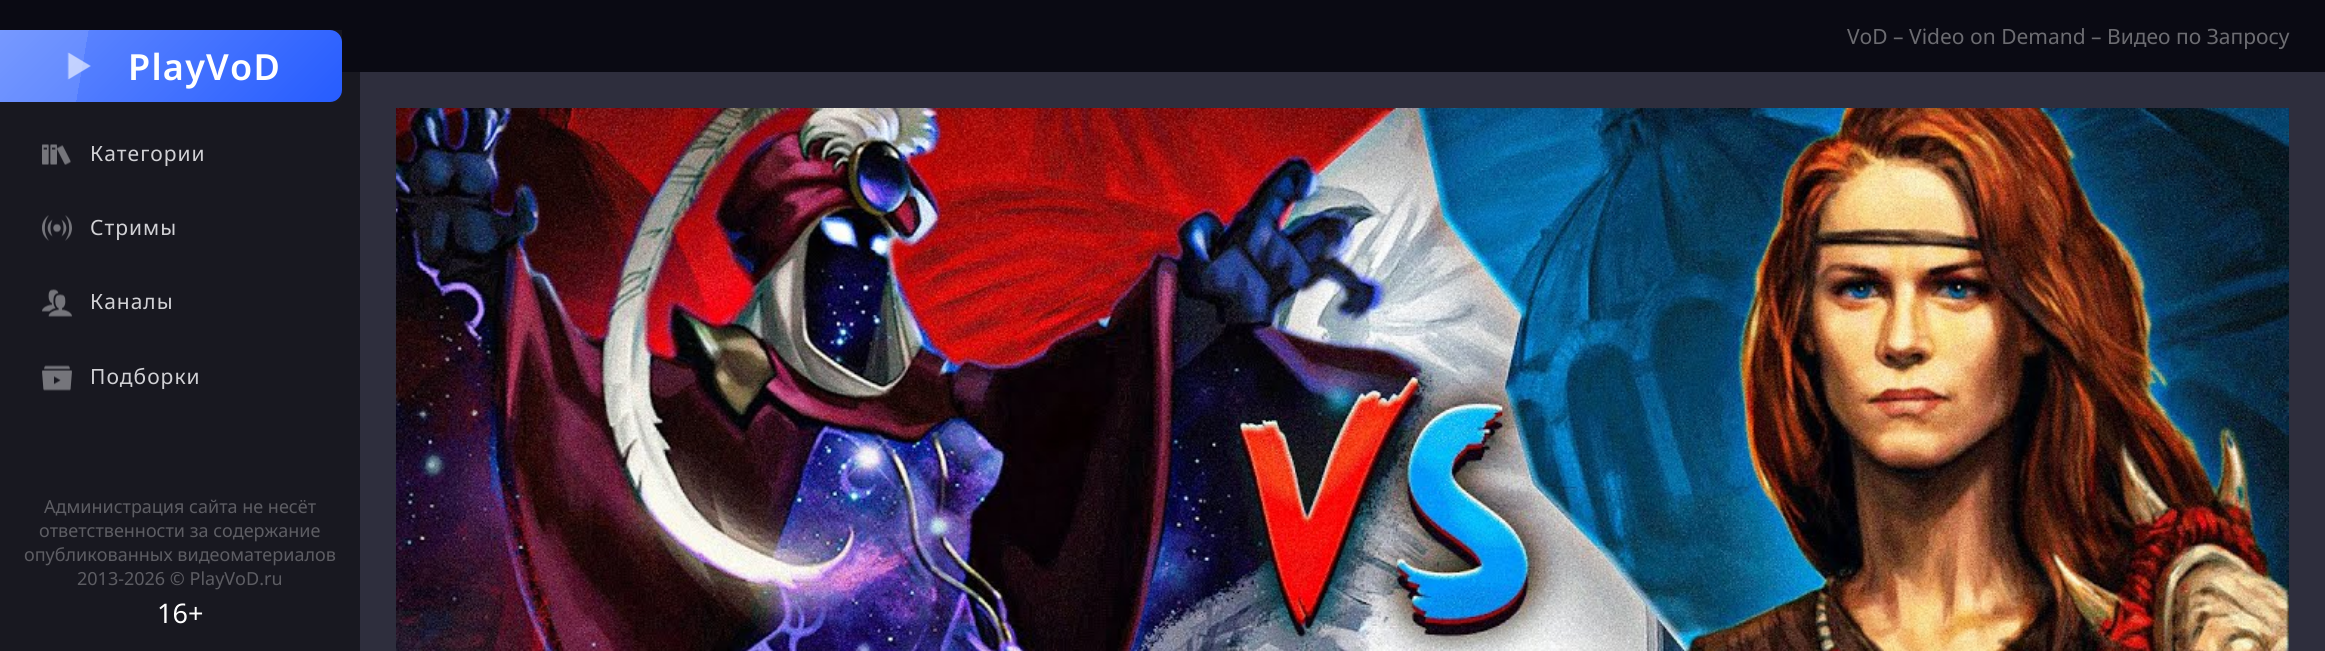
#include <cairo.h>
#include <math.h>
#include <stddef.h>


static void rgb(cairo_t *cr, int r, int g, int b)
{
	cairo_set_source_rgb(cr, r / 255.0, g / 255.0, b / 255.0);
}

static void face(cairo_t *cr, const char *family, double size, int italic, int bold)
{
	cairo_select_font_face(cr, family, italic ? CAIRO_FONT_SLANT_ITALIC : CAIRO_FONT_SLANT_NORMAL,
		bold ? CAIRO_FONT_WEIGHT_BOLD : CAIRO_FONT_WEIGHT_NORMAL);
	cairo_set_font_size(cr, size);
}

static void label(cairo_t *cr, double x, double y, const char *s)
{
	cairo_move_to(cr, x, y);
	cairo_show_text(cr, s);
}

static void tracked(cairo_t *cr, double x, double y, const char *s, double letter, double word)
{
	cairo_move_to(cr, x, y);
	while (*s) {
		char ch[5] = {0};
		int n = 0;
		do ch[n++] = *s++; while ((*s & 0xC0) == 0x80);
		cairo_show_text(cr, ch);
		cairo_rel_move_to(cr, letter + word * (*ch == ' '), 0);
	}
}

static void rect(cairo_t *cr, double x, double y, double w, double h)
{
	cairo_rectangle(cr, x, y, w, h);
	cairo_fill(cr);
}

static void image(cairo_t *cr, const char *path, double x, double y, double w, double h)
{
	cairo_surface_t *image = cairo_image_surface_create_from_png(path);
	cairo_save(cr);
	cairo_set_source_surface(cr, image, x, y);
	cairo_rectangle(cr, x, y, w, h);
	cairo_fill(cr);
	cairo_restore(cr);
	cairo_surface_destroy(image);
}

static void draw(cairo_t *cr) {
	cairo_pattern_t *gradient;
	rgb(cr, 46, 46, 61);
	cairo_paint(cr);
	rgb(cr, 10, 10, 19);
	rect(cr, 0, 0, 2325, 72);
	face(cr, "Noto Sans", 21, 0, 0);
	rgb(cr, 108, 108, 113);
	label(cr, 1847, 44, "VoD – Video on Demand – Видео по Запросу");
	image(cr, "image0.png", 396, 108, 1893, 543);
	rgb(cr, 24, 24, 32);
	rect(cr, 0, 72, 360, 579);
	rgb(cr, 38, 92, 255);
	cairo_new_path(cr);
	cairo_move_to(cr, 0, 30);
	cairo_line_to(cr, 330, 30);
	cairo_curve_to(cr, 336.5, 30, 342, 35.5, 342, 42);
	cairo_line_to(cr, 342, 90);
	cairo_curve_to(cr, 342, 96.5, 336.5, 102, 330, 102);
	cairo_line_to(cr, 0, 102);
	cairo_close_path(cr);
	cairo_fill(cr);
	gradient = cairo_pattern_create_linear(-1, 36, 343, 96);
	cairo_pattern_add_color_stop_rgba(gradient, 0.25, 1, 1, 1, 0.1);
	cairo_pattern_add_color_stop_rgba(gradient, 0.25, 1, 1, 1, 0);
	cairo_set_source(cr, gradient);
	cairo_pattern_destroy(gradient);
	rect(cr, 0, 30, 89, 72);
	gradient = cairo_pattern_create_linear(67, -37, 275, 170);
	cairo_pattern_add_color_stop_rgba(gradient, 0, 1, 1, 1, 0.3);
	cairo_pattern_add_color_stop_rgba(gradient, 1, 1, 1, 1, 0);
	cairo_set_source(cr, gradient);
	cairo_pattern_destroy(gradient);
	rect(cr, 0, 30, 342, 72);
	image(cr, "image1.png", 67, 52, 24, 28);
	face(cr, "Noto Sans SemiBold", 36, 0, 0);
	rgb(cr, 255, 255, 255);
	tracked(cr, 128, 80, "PlayVoD", 1.25, 0);
	image(cr, "image2.png", 42, 144, 29, 21);
	face(cr, "Noto Sans", 21, 0, 0);
	rgb(cr, 209, 209, 213);
	tracked(cr, 90, 161, "Категории", 1, 0);
	image(cr, "image3.png", 42, 215, 30, 26);
	tracked(cr, 90, 235, "Стримы", 1, 0);
	image(cr, "image4.png", 42, 289, 30, 28);
	tracked(cr, 90, 309, "Каналы", 1, 0);
	image(cr, "image5.png", 42, 365, 30, 26);
	tracked(cr, 90, 384, "Подборки", 1, 0);
	face(cr, "Noto Sans", 18, 0, 0);
	rgb(cr, 93, 93, 99);
	label(cr, 44, 513, "Администрация сайта не несёт");
	label(cr, 39, 537, "ответственности за содержание");
	label(cr, 24, 561, "опубликованных видеоматериалов");
	label(cr, 77, 585, "2013-2026 © PlayVoD.ru");
	face(cr, "Noto Sans", 27, 0, 0);
	rgb(cr, 255, 255, 255);
	label(cr, 157, 623, "16+");
}

int main(void) {
	cairo_surface_t *surface = cairo_image_surface_create(CAIRO_FORMAT_RGB24, 2325, 651);
	cairo_t *cr = cairo_create(surface);
	cairo_font_options_t *options = cairo_font_options_create();
	cairo_font_options_set_hint_metrics(options, CAIRO_HINT_METRICS_OFF);
	cairo_font_options_set_hint_style(options, CAIRO_HINT_STYLE_NONE);
	cairo_set_font_options(cr, options);
	cairo_set_miter_limit(cr, 4);
	draw(cr);
	cairo_surface_write_to_png(surface, "render.png");
	cairo_font_options_destroy(options);
	cairo_destroy(cr);
	cairo_surface_destroy(surface);
	return 0;
}
